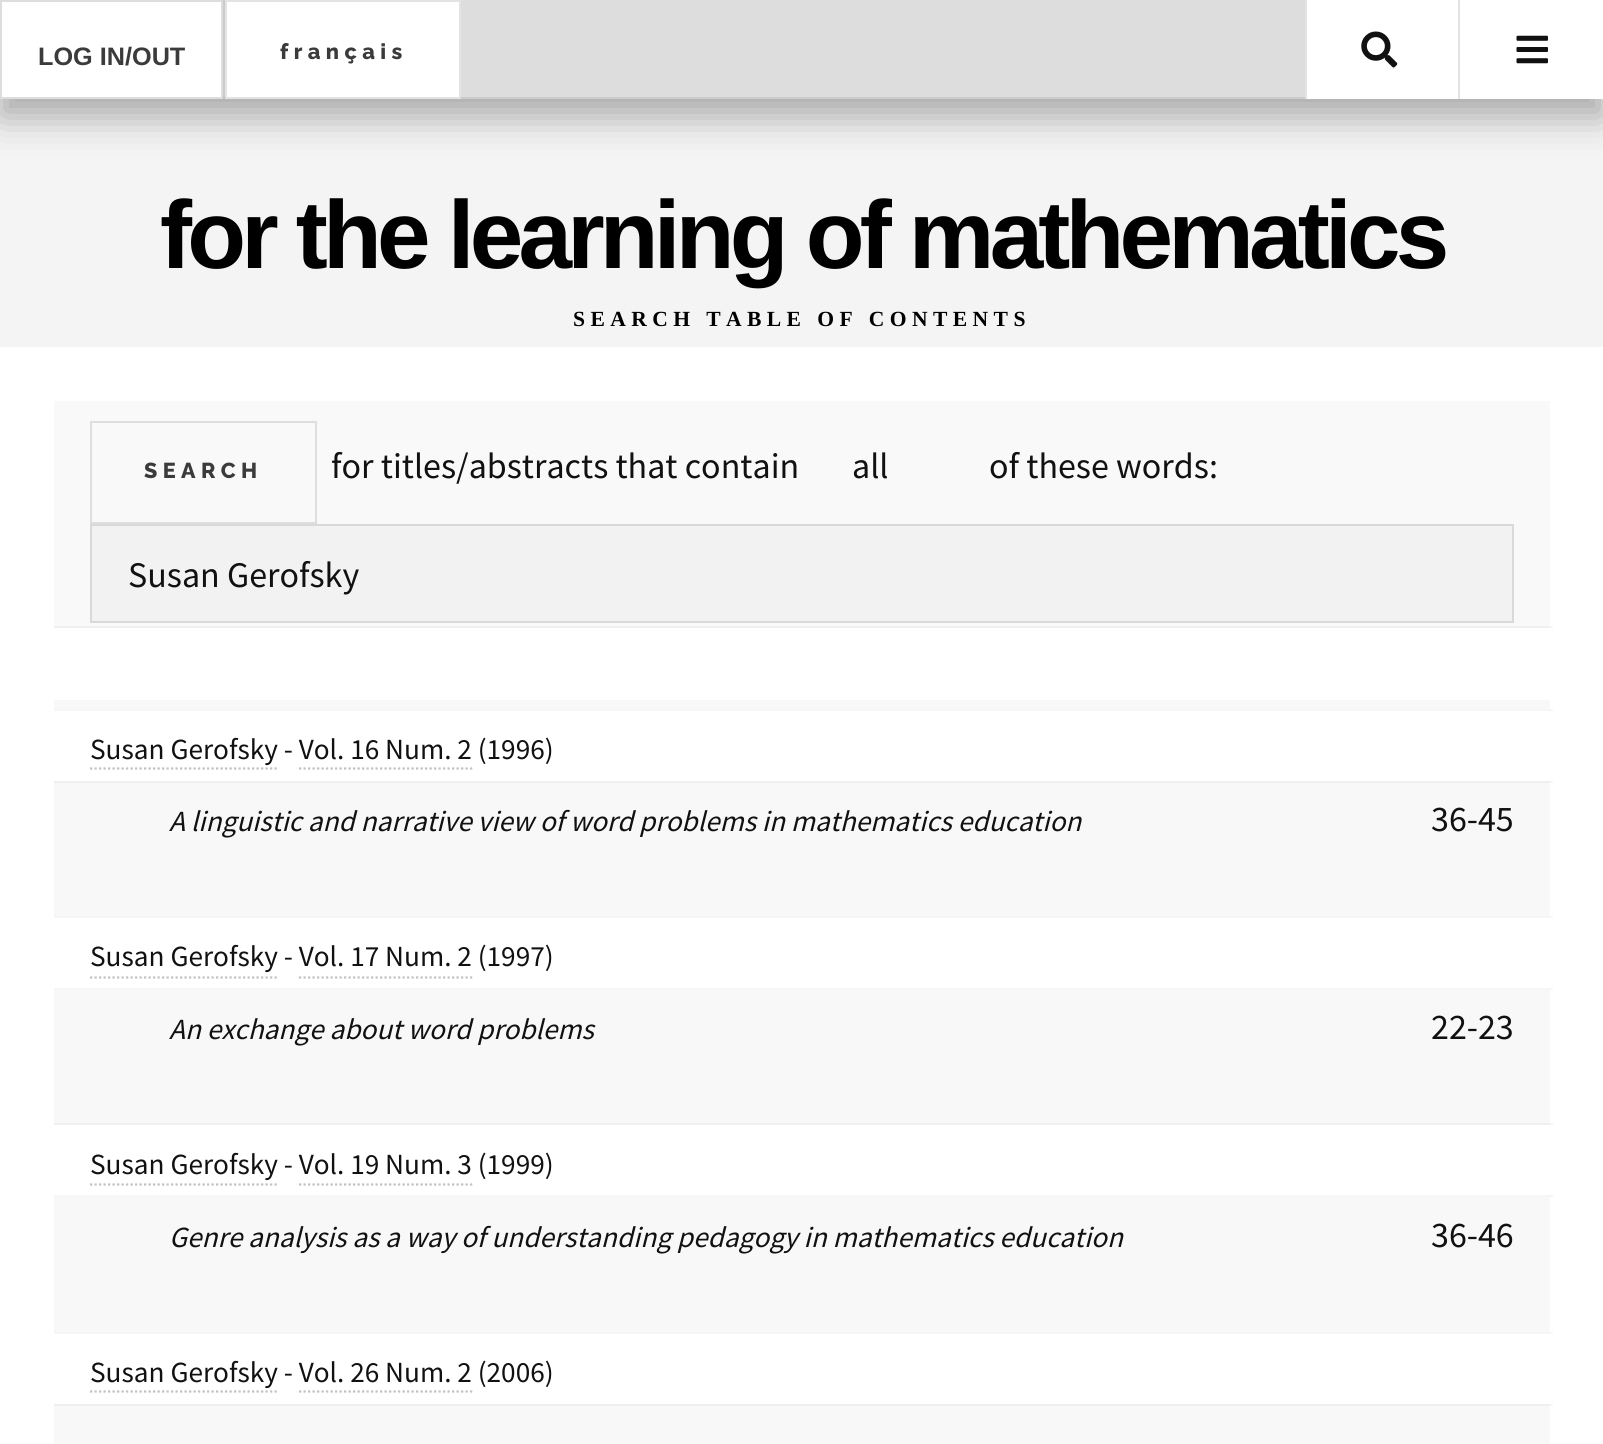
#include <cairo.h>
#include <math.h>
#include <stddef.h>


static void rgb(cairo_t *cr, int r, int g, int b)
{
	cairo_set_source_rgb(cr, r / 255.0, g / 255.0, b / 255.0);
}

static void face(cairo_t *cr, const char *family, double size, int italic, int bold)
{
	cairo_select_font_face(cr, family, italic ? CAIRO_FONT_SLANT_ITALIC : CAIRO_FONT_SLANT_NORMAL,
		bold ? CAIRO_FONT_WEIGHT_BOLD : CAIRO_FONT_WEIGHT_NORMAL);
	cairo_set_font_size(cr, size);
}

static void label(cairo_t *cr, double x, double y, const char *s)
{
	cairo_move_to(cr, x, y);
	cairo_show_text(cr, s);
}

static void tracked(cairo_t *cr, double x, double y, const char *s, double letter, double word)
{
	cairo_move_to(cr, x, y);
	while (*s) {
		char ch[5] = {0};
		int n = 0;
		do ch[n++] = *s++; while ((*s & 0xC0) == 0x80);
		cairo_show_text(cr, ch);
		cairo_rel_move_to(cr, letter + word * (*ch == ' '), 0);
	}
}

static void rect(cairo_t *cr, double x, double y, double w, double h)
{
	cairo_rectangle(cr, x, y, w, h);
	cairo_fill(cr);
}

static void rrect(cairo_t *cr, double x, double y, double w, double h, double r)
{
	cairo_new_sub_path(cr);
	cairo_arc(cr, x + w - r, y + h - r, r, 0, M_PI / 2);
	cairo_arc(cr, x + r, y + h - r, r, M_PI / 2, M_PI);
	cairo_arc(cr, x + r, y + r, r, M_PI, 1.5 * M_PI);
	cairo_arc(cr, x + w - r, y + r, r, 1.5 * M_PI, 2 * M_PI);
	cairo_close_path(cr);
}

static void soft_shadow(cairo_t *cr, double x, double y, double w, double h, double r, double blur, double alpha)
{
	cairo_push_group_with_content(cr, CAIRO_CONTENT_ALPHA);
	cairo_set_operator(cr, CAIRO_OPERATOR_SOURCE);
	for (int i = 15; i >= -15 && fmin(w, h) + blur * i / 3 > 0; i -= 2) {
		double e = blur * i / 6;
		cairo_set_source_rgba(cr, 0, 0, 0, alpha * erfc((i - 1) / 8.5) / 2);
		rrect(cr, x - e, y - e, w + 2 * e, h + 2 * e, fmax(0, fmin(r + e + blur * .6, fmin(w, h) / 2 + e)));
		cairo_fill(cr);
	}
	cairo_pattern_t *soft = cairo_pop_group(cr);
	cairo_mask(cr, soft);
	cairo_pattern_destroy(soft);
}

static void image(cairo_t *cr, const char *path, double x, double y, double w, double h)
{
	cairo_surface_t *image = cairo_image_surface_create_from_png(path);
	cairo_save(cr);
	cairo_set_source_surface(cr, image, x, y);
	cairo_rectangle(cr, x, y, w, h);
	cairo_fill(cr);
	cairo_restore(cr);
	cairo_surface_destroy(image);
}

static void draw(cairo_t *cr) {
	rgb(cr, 244, 244, 244);
	cairo_paint(cr);
	rgb(cr, 17, 17, 17);
	soft_shadow(cr, 0, 18, 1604, 99, 0, 18, 0.33);
	rgb(cr, 221, 221, 221);
	rect(cr, 461, 0, 844, 97);
	rgb(cr, 203, 203, 203);
	rect(cr, 223, 0, 2, 99);
	rect(cr, 461, 97, 844, 2);
	rgb(cr, 190, 190, 190);
	rect(cr, 223, 97, 2, 2);
	rgb(cr, 255, 255, 255);
	cairo_rectangle(cr, 1, 1, 221, 97);
	cairo_fill_preserve(cr);
	rgb(cr, 221, 221, 221);
	cairo_stroke(cr);
	face(cr, "Liberation Sans", 25.25, 0, 1);
	rgb(cr, 60, 59, 59);
	label(cr, 38, 65, "LOG IN/OUT");
	rgb(cr, 255, 255, 255);
	cairo_rectangle(cr, 226, 1, 234, 97);
	cairo_fill_preserve(cr);
	rgb(cr, 227, 227, 227);
	cairo_stroke(cr);
	face(cr, "Raleway ExtraBold", 21.6, 0, 0);
	rgb(cr, 60, 59, 59);
	tracked(cr, 280, 59, "français", 5.4, 0);
	rgb(cr, 255, 255, 255);
	rect(cr, 1307, 0, 296, 99);
	rgb(cr, 227, 227, 227);
	rect(cr, 1305, 0, 2, 99);
	image(cr, "image0.png", 1361, 31, 37, 37);
	rect(cr, 1458, 0, 2, 99);
	image(cr, "image1.png", 1516, 35, 32, 29);
	face(cr, "Liberation Sans", 96.25, 0, 1);
	rgb(cr, 0, 0, 0);
	tracked(cr, 160, 268, "for the learning of mathematics", -4.8, 0);
	face(cr, "Liberation Serif", 21.6, 0, 1);
	tracked(cr, 573, 326, "SEARCH TABLE OF CONTENTS", 5.4, 0);
	rgb(cr, 255, 255, 255);
	rect(cr, 0, 347, 1603, 1097);
	rgb(cr, 246, 246, 246);
	rect(cr, 1550, 781, 3, 2);
	rect(cr, 1550, 1123, 3, 2);
	rect(cr, 1550, 1404, 3, 2);
	rect(cr, 1550, 626, 3, 2);
	rgb(cr, 249, 249, 249);
	rect(cr, 54, 401, 1496, 225);
	rgb(cr, 240, 240, 240);
	rect(cr, 54, 626, 1496, 2);
	cairo_rectangle(cr, 91, 422, 225, 101);
	rgb(cr, 222, 222, 222);
	cairo_stroke(cr);
	face(cr, "Raleway ExtraBold", 21.6, 0, 0);
	rgb(cr, 60, 59, 59);
	tracked(cr, 144, 478, "SEARCH", 5.4, 0);
	face(cr, "Source Sans Pro", 36, 0, 0);
	rgb(cr, 17, 17, 17);
	label(cr, 331, 478, "for titles/abstracts that contain");
	label(cr, 852, 478, "all");
	label(cr, 989, 478, "of these words:");
	rgb(cr, 242, 242, 242);
	cairo_rectangle(cr, 91, 525, 1422, 97);
	cairo_fill_preserve(cr);
	rgb(cr, 217, 217, 217);
	cairo_stroke(cr);
	rgb(cr, 17, 17, 17);
	label(cr, 128, 587, "Susan Gerofsky");
	rgb(cr, 248, 248, 248);
	rect(cr, 54, 700, 1496, 9);
	rgb(cr, 246, 246, 246);
	rect(cr, 54, 709, 1499, 2);
	face(cr, "Source Sans Pro", 29.25, 0, 0);
	rgb(cr, 17, 17, 17);
	label(cr, 90, 759, "Susan Gerofsky - Vol. 16 Num. 2 (1996)");
	cairo_new_path(cr);
	cairo_move_to(cr, 90, 768.5);
	cairo_line_to(cr, 279, 768.5);
	rgb(cr, 193, 193, 193);
	cairo_set_line_width(cr, 2.2);
	cairo_set_dash(cr, (double[]){2.25, 2.25}, 2, 0);
	cairo_stroke(cr);
	cairo_new_path(cr);
	cairo_move_to(cr, 299, 768.5);
	cairo_line_to(cr, 472.5, 768.5);
	cairo_stroke(cr);
	rgb(cr, 248, 248, 248);
	rect(cr, 54, 783, 1496, 133);
	rgb(cr, 239, 239, 239);
	rect(cr, 54, 781, 1496, 2);
	rgb(cr, 246, 246, 246);
	rect(cr, 54, 916, 1499, 2);
	face(cr, "Source Sans Pro", 29.25, 1, 0);
	rgb(cr, 17, 17, 17);
	label(cr, 169, 831, "A linguistic and narrative view of word problems in mathematics education");
	face(cr, "Source Sans Pro", 36, 0, 0);
	label(cr, 1431, 831, "36-45");
	rgb(cr, 246, 246, 246);
	rect(cr, 54, 988, 1499, 2);
	face(cr, "Source Sans Pro", 29.25, 0, 0);
	rgb(cr, 17, 17, 17);
	label(cr, 90, 966, "Susan Gerofsky - Vol. 17 Num. 2 (1997)");
	cairo_new_path(cr);
	cairo_move_to(cr, 90, 977.5);
	cairo_line_to(cr, 279, 977.5);
	rgb(cr, 193, 193, 193);
	cairo_stroke(cr);
	cairo_new_path(cr);
	cairo_move_to(cr, 299, 977.5);
	cairo_line_to(cr, 472.5, 977.5);
	cairo_stroke(cr);
	rgb(cr, 248, 248, 248);
	rect(cr, 54, 990, 1496, 133);
	rgb(cr, 239, 239, 239);
	rect(cr, 54, 1123, 1496, 2);
	face(cr, "Source Sans Pro", 29.25, 1, 0);
	rgb(cr, 17, 17, 17);
	label(cr, 169, 1039, "An exchange about word problems");
	face(cr, "Source Sans Pro", 36, 0, 0);
	label(cr, 1431, 1039, "22-23");
	rgb(cr, 246, 246, 246);
	rect(cr, 54, 1195, 1499, 2);
	face(cr, "Source Sans Pro", 29.25, 0, 0);
	rgb(cr, 17, 17, 17);
	label(cr, 90, 1174, "Susan Gerofsky - Vol. 19 Num. 3 (1999)");
	cairo_new_path(cr);
	cairo_move_to(cr, 90, 1184.5);
	cairo_line_to(cr, 279, 1184.5);
	rgb(cr, 193, 193, 193);
	cairo_stroke(cr);
	cairo_new_path(cr);
	cairo_move_to(cr, 299, 1184.5);
	cairo_line_to(cr, 472.5, 1184.5);
	cairo_stroke(cr);
	rgb(cr, 248, 248, 248);
	rect(cr, 54, 1197, 1496, 135);
	rgb(cr, 246, 246, 246);
	rect(cr, 54, 1332, 1499, 2);
	face(cr, "Source Sans Pro", 29.25, 1, 0);
	rgb(cr, 17, 17, 17);
	label(cr, 169, 1247, "Genre analysis as a way of understanding pedagogy in mathematics education");
	face(cr, "Source Sans Pro", 36, 0, 0);
	label(cr, 1431, 1247, "36-46");
	face(cr, "Source Sans Pro", 29.25, 0, 0);
	label(cr, 90, 1382, "Susan Gerofsky - Vol. 26 Num. 2 (2006)");
	cairo_new_path(cr);
	cairo_move_to(cr, 90, 1391.5);
	cairo_line_to(cr, 279, 1391.5);
	rgb(cr, 193, 193, 193);
	cairo_stroke(cr);
	cairo_new_path(cr);
	cairo_move_to(cr, 299, 1391.5);
	cairo_line_to(cr, 472.5, 1391.5);
	cairo_stroke(cr);
	rgb(cr, 248, 248, 248);
	rect(cr, 54, 1406, 1496, 38);
	rgb(cr, 239, 239, 239);
	rect(cr, 54, 1404, 1496, 2);
}

int main(void) {
	cairo_surface_t *surface = cairo_image_surface_create(CAIRO_FORMAT_RGB24, 1603, 1444);
	cairo_t *cr = cairo_create(surface);
	cairo_font_options_t *options = cairo_font_options_create();
	cairo_font_options_set_hint_metrics(options, CAIRO_HINT_METRICS_OFF);
	cairo_font_options_set_hint_style(options, CAIRO_HINT_STYLE_NONE);
	cairo_set_font_options(cr, options);
	cairo_set_miter_limit(cr, 4);
	draw(cr);
	cairo_surface_write_to_png(surface, "render.png");
	cairo_font_options_destroy(options);
	cairo_destroy(cr);
	cairo_surface_destroy(surface);
	return 0;
}
